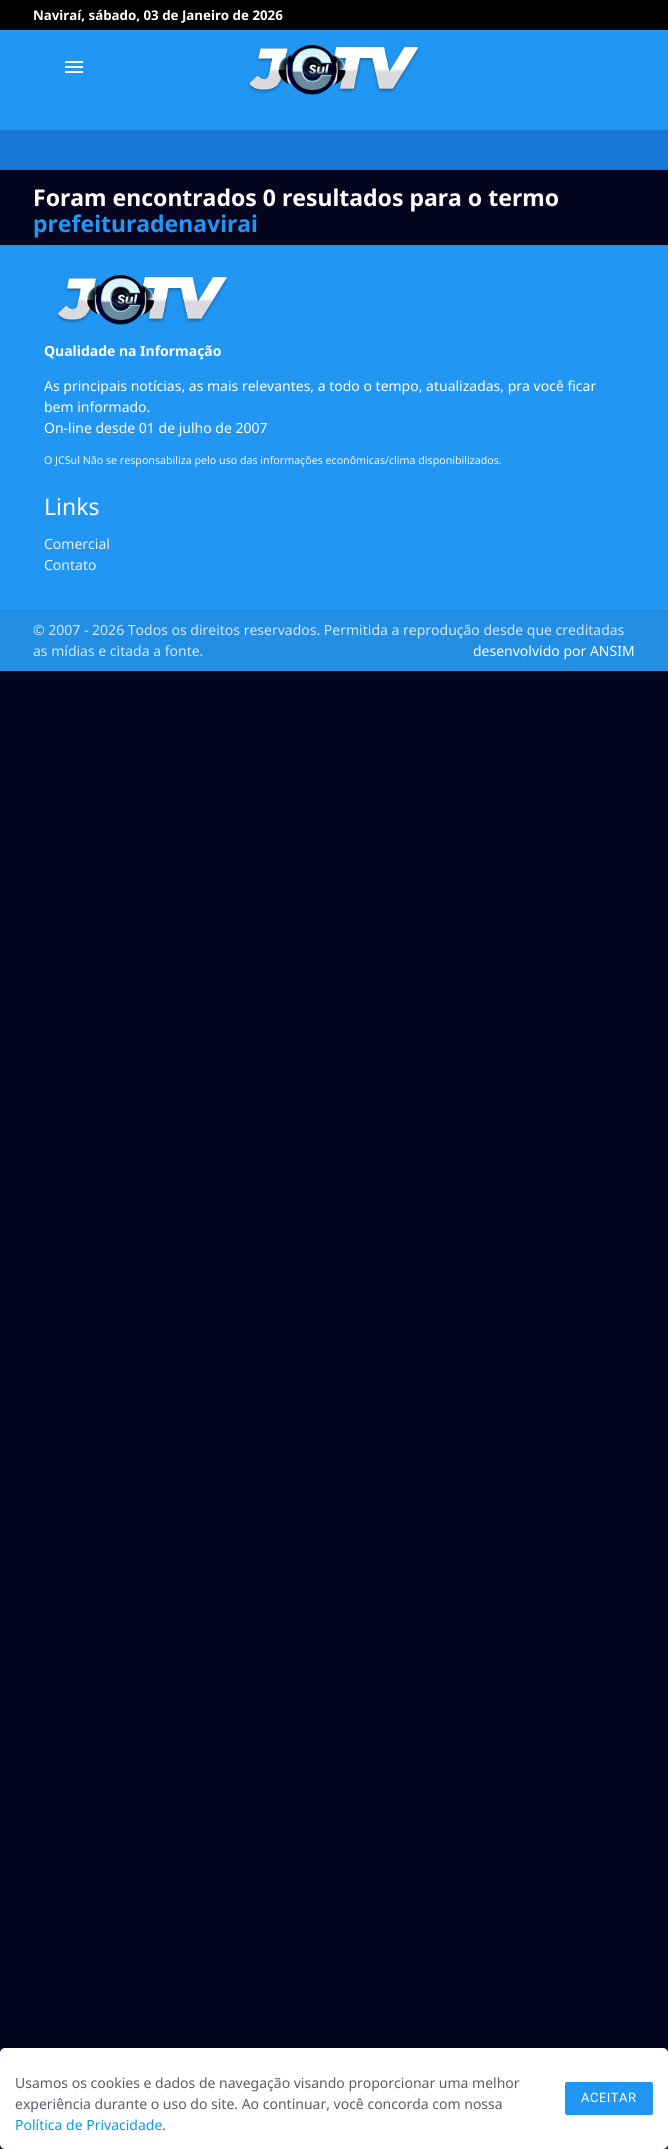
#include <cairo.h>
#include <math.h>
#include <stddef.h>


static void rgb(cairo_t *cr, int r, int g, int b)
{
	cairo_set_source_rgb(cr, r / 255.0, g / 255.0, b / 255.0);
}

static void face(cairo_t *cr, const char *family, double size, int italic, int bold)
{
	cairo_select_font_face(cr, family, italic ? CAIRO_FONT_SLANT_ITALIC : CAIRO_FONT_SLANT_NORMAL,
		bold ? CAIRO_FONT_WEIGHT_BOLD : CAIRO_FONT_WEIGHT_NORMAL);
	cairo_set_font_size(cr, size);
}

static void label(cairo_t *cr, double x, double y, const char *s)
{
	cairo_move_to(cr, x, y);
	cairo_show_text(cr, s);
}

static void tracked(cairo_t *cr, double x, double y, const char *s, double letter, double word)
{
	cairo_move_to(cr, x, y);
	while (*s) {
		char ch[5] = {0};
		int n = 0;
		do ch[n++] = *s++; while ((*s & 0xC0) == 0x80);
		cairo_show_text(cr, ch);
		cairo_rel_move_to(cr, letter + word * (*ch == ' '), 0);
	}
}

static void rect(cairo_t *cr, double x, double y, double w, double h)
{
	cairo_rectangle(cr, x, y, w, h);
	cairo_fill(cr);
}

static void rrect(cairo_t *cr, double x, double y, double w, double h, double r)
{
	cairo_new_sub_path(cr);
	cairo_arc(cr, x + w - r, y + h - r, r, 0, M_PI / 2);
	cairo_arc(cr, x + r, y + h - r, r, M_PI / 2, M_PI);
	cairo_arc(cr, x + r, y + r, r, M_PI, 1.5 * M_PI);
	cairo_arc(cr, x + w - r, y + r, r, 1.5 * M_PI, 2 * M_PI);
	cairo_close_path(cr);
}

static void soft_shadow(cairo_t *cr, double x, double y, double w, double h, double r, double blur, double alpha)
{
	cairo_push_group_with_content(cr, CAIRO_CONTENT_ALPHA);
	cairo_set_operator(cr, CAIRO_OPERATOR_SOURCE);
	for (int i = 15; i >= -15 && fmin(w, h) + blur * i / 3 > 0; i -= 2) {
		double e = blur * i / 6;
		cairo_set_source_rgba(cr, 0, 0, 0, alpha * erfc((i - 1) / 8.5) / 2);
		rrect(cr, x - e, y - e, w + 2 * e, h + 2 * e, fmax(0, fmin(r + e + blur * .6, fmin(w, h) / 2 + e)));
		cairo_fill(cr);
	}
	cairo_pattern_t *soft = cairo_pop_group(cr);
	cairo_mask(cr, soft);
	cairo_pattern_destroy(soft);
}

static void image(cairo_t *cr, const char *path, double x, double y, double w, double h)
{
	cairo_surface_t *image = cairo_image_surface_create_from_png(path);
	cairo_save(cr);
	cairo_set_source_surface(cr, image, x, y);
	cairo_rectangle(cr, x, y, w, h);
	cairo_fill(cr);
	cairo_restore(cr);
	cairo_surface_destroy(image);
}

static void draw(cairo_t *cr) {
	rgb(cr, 5, 5, 32);
	cairo_paint(cr);
	rgb(cr, 33, 150, 243);
	rect(cr, 0, 30, 668, 100);
	rgb(cr, 0, 0, 0);
	rect(cr, 0, 0, 668, 30);
	face(cr, "Noto Sans", 13.3, 0, 1);
	rgb(cr, 255, 255, 255);
	label(cr, 33, 20, "Naviraí, sábado, 03 de Janeiro de 2026");
	image(cr, "image0.png", 65, 61, 18, 12);
	image(cr, "image1.png", 248, 45, 172, 50);
	rgb(cr, 25, 118, 210);
	rect(cr, 0, 130, 668, 40);
	face(cr, "Noto Sans", 23, 0, 1);
	rgb(cr, 255, 255, 255);
	label(cr, 33, 206, "Foram encontrados 0 resultados para o termo");
	rgb(cr, 33, 150, 243);
	label(cr, 33, 232, "prefeituradenavirai");
	rect(cr, 0, 245, 668, 364);
	image(cr, "image2.png", 56, 275, 173, 50);
	face(cr, "Noto Sans", 14, 0, 1);
	rgb(cr, 255, 255, 255);
	label(cr, 44, 356, "Qualidade na Informação");
	face(cr, "Noto Sans", 14, 0, 0);
	label(cr, 44, 391, "As principais notícias, as mais relevantes, a todo o tempo, atualizadas, pra você ficar");
	label(cr, 44, 412, "bem informado.");
	label(cr, 44, 433, "On-line desde 01 de julho de 2007");
	face(cr, "Noto Sans", 10.65, 0, 0);
	rgb(cr, 245, 245, 245);
	label(cr, 44, 464, "O JCSul Não se responsabiliza pelo uso das informações econômicas/clima disponibilizados.");
	face(cr, "Noto Sans", 23, 0, 0);
	rgb(cr, 255, 255, 255);
	label(cr, 44, 515, "Links");
	face(cr, "Noto Sans", 14, 0, 0);
	rgb(cr, 238, 238, 238);
	label(cr, 44, 549, "Comercial");
	label(cr, 44, 570, "Contato");
	rgb(cr, 34, 142, 228);
	rect(cr, 0, 609, 668, 62);
	rgb(cr, 211, 232, 250);
	label(cr, 33, 635, "© 2007 - 2026 Todos os direitos reservados. Permitida a reprodução desde que creditadas");
	label(cr, 33, 656, "as mídias e citada a fonte.");
	rgb(cr, 255, 255, 255);
	label(cr, 473, 656, "desenvolvido por ANSIM");
	rgb(cr, 0, 0, 0);
	soft_shadow(cr, 0, 2051, 668, 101, 5, 12.5, 0.41);
	rgb(cr, 255, 255, 255);
	rrect(cr, 0, 2048, 668, 101, 5);
	cairo_fill(cr);
	rgb(cr, 91, 92, 101);
	label(cr, 15, 2088, "Usamos os cookies e dados de navegação visando proporcionar uma melhor");
	label(cr, 15, 2109, "experiência durante o uso do site. Ao continuar, você concorda com nossa");
	rgb(cr, 3, 155, 229);
	label(cr, 15, 2130, "Política de Privacidade");
	rgb(cr, 91, 92, 101);
	label(cr, 162, 2130, ".");
	rgb(cr, 33, 150, 243);
	rrect(cr, 565, 2082, 88, 33, 2);
	cairo_fill(cr);
	face(cr, "Roboto", 13, 0, 0);
	rgb(cr, 255, 255, 255);
	tracked(cr, 581, 2102, "ACEITAR", 0.5, 0);
}

int main(void) {
	cairo_surface_t *surface = cairo_image_surface_create(CAIRO_FORMAT_RGB24, 668, 2149);
	cairo_t *cr = cairo_create(surface);
	cairo_font_options_t *options = cairo_font_options_create();
	cairo_font_options_set_hint_metrics(options, CAIRO_HINT_METRICS_OFF);
	cairo_font_options_set_hint_style(options, CAIRO_HINT_STYLE_NONE);
	cairo_set_font_options(cr, options);
	cairo_set_miter_limit(cr, 4);
	draw(cr);
	cairo_surface_write_to_png(surface, "render.png");
	cairo_font_options_destroy(options);
	cairo_destroy(cr);
	cairo_surface_destroy(surface);
	return 0;
}
